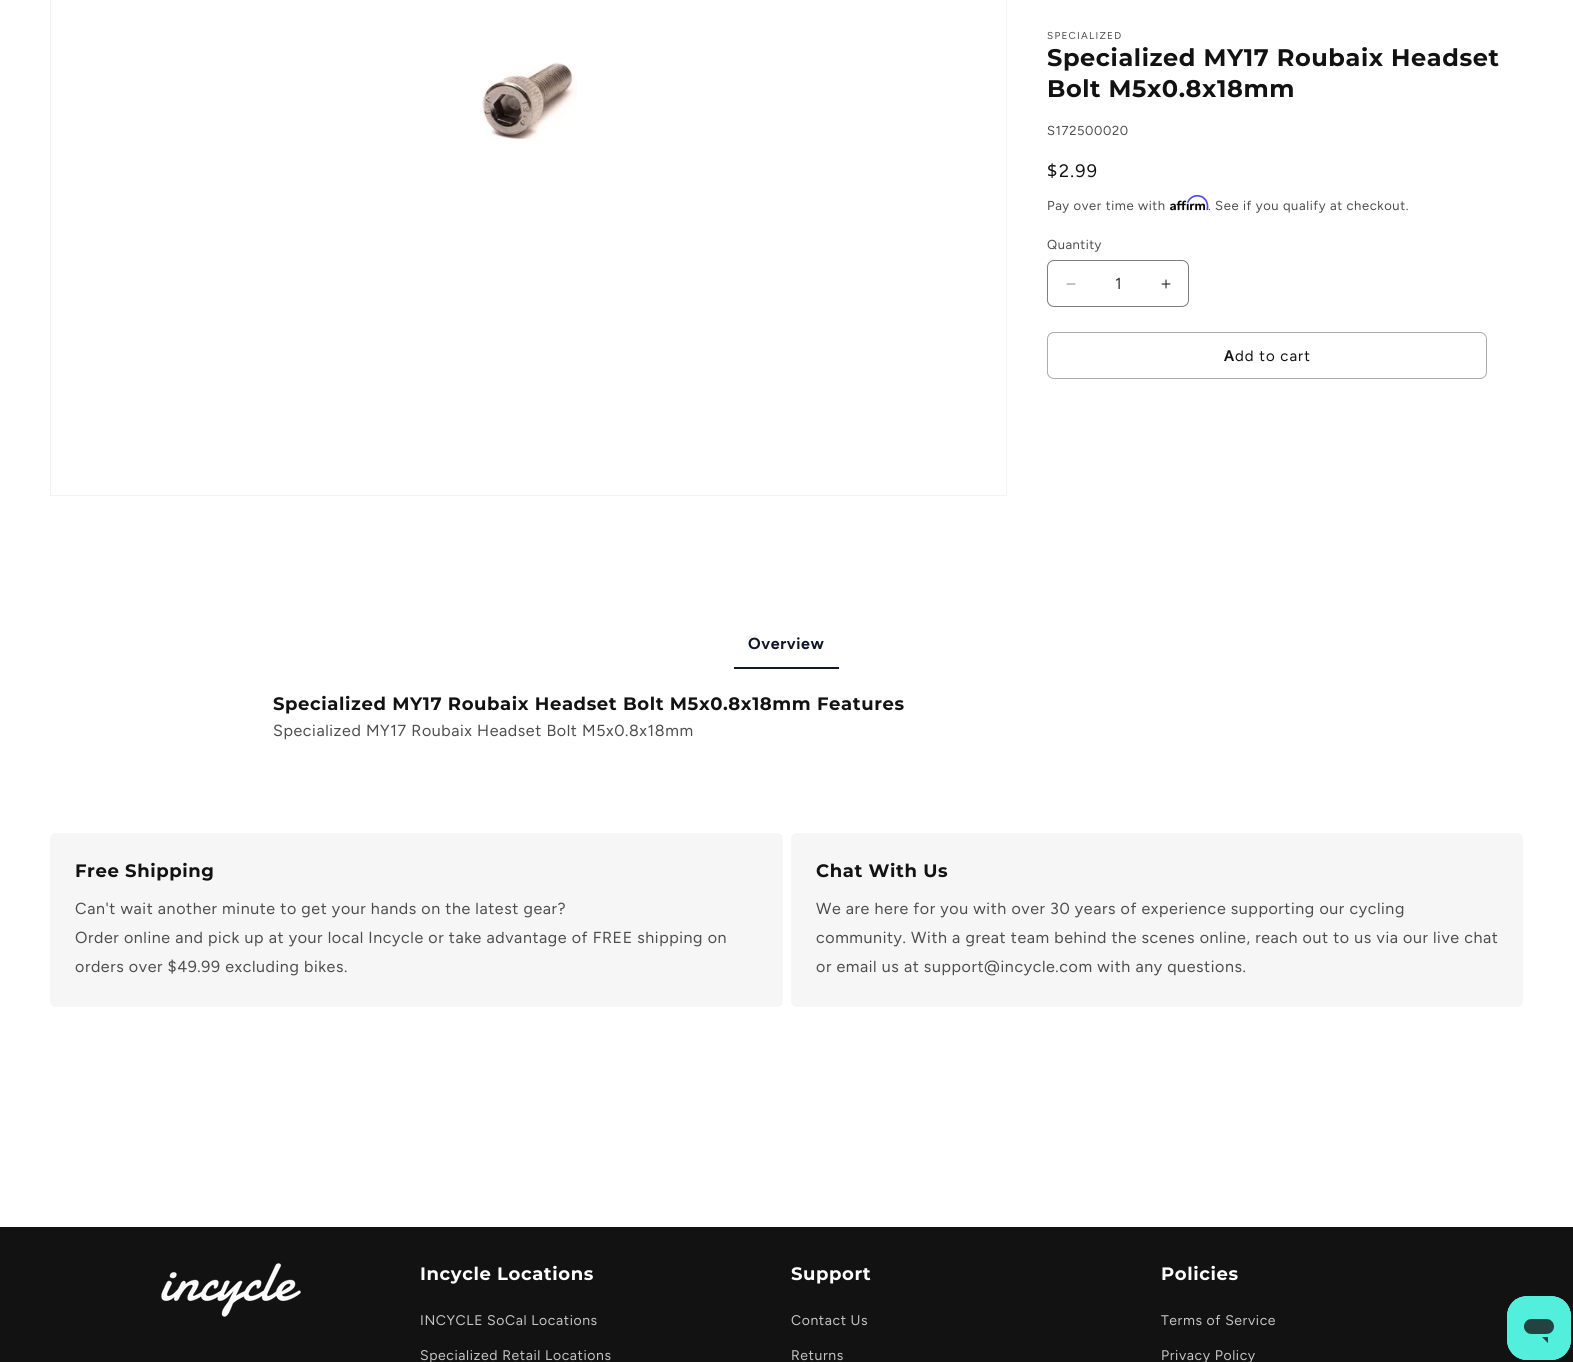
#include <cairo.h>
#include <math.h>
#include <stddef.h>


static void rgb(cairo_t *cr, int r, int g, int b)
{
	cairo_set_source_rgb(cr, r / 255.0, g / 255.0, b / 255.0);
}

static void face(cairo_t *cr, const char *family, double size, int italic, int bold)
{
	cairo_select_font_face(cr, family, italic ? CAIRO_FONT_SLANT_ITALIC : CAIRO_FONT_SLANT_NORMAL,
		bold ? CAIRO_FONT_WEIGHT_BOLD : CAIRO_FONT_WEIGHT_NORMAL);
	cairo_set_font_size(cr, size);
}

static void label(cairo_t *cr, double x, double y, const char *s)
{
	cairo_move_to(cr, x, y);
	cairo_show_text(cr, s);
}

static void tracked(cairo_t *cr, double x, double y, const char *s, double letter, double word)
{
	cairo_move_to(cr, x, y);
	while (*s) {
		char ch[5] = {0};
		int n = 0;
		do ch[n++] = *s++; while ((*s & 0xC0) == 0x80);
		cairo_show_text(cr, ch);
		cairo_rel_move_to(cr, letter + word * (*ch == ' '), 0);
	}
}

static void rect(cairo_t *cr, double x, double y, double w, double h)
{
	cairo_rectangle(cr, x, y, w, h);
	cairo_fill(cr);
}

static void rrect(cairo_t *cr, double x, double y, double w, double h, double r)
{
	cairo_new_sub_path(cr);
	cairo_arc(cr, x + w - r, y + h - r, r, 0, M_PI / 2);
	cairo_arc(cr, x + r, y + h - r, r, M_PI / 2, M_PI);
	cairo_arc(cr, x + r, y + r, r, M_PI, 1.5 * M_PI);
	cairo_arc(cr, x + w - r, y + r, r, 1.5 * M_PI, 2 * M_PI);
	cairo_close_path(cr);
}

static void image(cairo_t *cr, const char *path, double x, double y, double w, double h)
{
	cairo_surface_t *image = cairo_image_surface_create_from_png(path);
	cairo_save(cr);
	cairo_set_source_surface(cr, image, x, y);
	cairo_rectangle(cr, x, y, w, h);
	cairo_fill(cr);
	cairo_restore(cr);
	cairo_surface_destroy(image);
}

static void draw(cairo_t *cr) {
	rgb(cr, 255, 255, 255);
	cairo_paint(cr);
	cairo_rectangle(cr, 50.5, -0.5, 956, 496);
	rgb(cr, 243, 243, 243);
	cairo_set_line_width(cr, 1);
	cairo_stroke(cr);
	image(cr, "image0.png", 482, 61, 95, 79);
	face(cr, "Figtree", 10, 0, 0);
	rgb(cr, 77, 77, 77);
	tracked(cr, 1047, 39, "SPECIALIZED", 1.25, 0);
	face(cr, "Montserrat", 24, 0, 1);
	rgb(cr, 18, 18, 18);
	tracked(cr, 1047, 66, "Specialized MY17 Roubaix Headset", 0.6, 0);
	tracked(cr, 1047, 97, "Bolt M5x0.8x18mm", 0.6, 0);
	face(cr, "Figtree", 13, 0, 0);
	rgb(cr, 77, 77, 77);
	tracked(cr, 1047, 135, "S172500020", 0.6, 0);
	face(cr, "Noto Sans", 18, 0, 0);
	rgb(cr, 18, 18, 18);
	tracked(cr, 1047, 177, "$", 1.25, 0);
	face(cr, "Figtree", 18, 0, 0);
	tracked(cr, 1059, 177, "2.99", 1.25, 0);
	face(cr, "Figtree", 13, 0, 0);
	rgb(cr, 77, 77, 77);
	tracked(cr, 1047, 210, "Pay over time with", 0.6, 0);
	image(cr, "image2.png", 1170, 200, 36, 11);
	tracked(cr, 1208, 210, ". See if you qualify at checkout.", 0.6, 0);
	image(cr, "image1.png", 1186, 194, 23, 17);
	tracked(cr, 1047, 249, "Quantity", 0.5, 0);
	image(cr, "image3.png", 1066, 283, 10, 2);
	image(cr, "image4.png", 1161, 279, 10, 10);
	rrect(cr, 1047.5, 260.5, 141, 46, 6.5);
	rgb(cr, 125, 125, 125);
	cairo_stroke(cr);
	face(cr, "Figtree", 16, 0, 0);
	rgb(cr, 54, 54, 54);
	label(cr, 1115, 289, "1");
	rrect(cr, 1047.5, 332.5, 439, 46, 6.5);
	rgb(cr, 172, 172, 172);
	cairo_stroke(cr);
	face(cr, "Noto Sans SemiBold", 15, 0, 0);
	rgb(cr, 18, 18, 18);
	tracked(cr, 1224, 361, "A", 1, 0);
	face(cr, "Figtree", 15, 0, 0);
	tracked(cr, 1235, 361, "dd to cart", 1, 0);
	rgb(cr, 17, 24, 39);
	rect(cr, 734, 667, 105, 2);
	face(cr, "Figtree", 16, 0, 1);
	tracked(cr, 748, 649, "Overview", 0.6, 0);
	face(cr, "Montserrat", 18, 0, 1);
	rgb(cr, 18, 18, 18);
	tracked(cr, 273, 710, "Specialized MY17 Roubaix Headset Bolt M5x0.8x18mm Features", 0.6, 0);
	face(cr, "Figtree", 16, 0, 0);
	rgb(cr, 77, 77, 77);
	tracked(cr, 273, 736, "Specialized MY17 Roubaix Headset Bolt M5x0.8x18mm", 0.6, 0);
	rgb(cr, 246, 246, 246);
	rrect(cr, 50, 833, 733, 174, 6);
	cairo_fill(cr);
	face(cr, "Montserrat", 18, 0, 1);
	rgb(cr, 18, 18, 18);
	tracked(cr, 75, 877, "Free Shipping", 0.6, 0);
	face(cr, "Figtree", 16, 0, 0);
	rgb(cr, 77, 77, 77);
	tracked(cr, 75, 914, "Can't wait another minute to get your hands on the latest gear?", 0.6, 0);
	tracked(cr, 75, 943, "Order online and pick up at your local Incycle or take advantage of FREE shipping on", 0.6, 0);
	tracked(cr, 75, 972, "orders over $49.99 excluding bikes.", 0.6, 0);
	rgb(cr, 246, 246, 246);
	rrect(cr, 791, 833, 732, 174, 6);
	cairo_fill(cr);
	face(cr, "Montserrat", 18, 0, 1);
	rgb(cr, 18, 18, 18);
	tracked(cr, 816, 877, "Chat With Us", 0.6, 0);
	face(cr, "Figtree", 16, 0, 0);
	rgb(cr, 77, 77, 77);
	tracked(cr, 816, 914, "We are here for you with over 30 years of experience supporting our cycling", 0.6, 0);
	tracked(cr, 816, 943, "community. With a great team behind the scenes online, reach out to us via our live chat", 0.6, 0);
	tracked(cr, 816, 972, "or email us at support@incycle.com with any questions.", 0.6, 0);
	rgb(cr, 18, 18, 18);
	rect(cr, 0, 1227, 1573, 135);
	image(cr, "image5.png", 161, 1263, 140, 54);
	face(cr, "Montserrat", 18, 0, 1);
	rgb(cr, 255, 255, 255);
	tracked(cr, 420, 1280, "Incycle Locations", 0.6, 0);
	face(cr, "Figtree", 14, 0, 0);
	rgb(cr, 196, 196, 196);
	tracked(cr, 420, 1325, "INCYCLE SoCal Locations", 0.6, 0);
	tracked(cr, 420, 1360, "Specialized Retail Locations", 0.6, 0);
	face(cr, "Montserrat", 18, 0, 1);
	rgb(cr, 255, 255, 255);
	tracked(cr, 791, 1280, "Support", 0.6, 0);
	face(cr, "Figtree", 14, 0, 0);
	rgb(cr, 196, 196, 196);
	tracked(cr, 791, 1325, "Contact Us", 0.6, 0);
	tracked(cr, 791, 1360, "Returns", 0.6, 0);
	face(cr, "Montserrat", 18, 0, 1);
	rgb(cr, 255, 255, 255);
	tracked(cr, 1161, 1280, "Policies", 0.6, 0);
	face(cr, "Figtree", 14, 0, 0);
	rgb(cr, 196, 196, 196);
	tracked(cr, 1161, 1325, "Terms of Service", 0.6, 0);
	tracked(cr, 1161, 1360, "Privacy Policy", 0.6, 0);
	image(cr, "image6.png", 1507, 1296, 64, 64);
}

int main(void) {
	cairo_surface_t *surface = cairo_image_surface_create(CAIRO_FORMAT_RGB24, 1573, 1362);
	cairo_t *cr = cairo_create(surface);
	cairo_font_options_t *options = cairo_font_options_create();
	cairo_font_options_set_hint_metrics(options, CAIRO_HINT_METRICS_OFF);
	cairo_font_options_set_hint_style(options, CAIRO_HINT_STYLE_NONE);
	cairo_set_font_options(cr, options);
	cairo_set_miter_limit(cr, 4);
	draw(cr);
	cairo_surface_write_to_png(surface, "render.png");
	cairo_font_options_destroy(options);
	cairo_destroy(cr);
	cairo_surface_destroy(surface);
	return 0;
}
